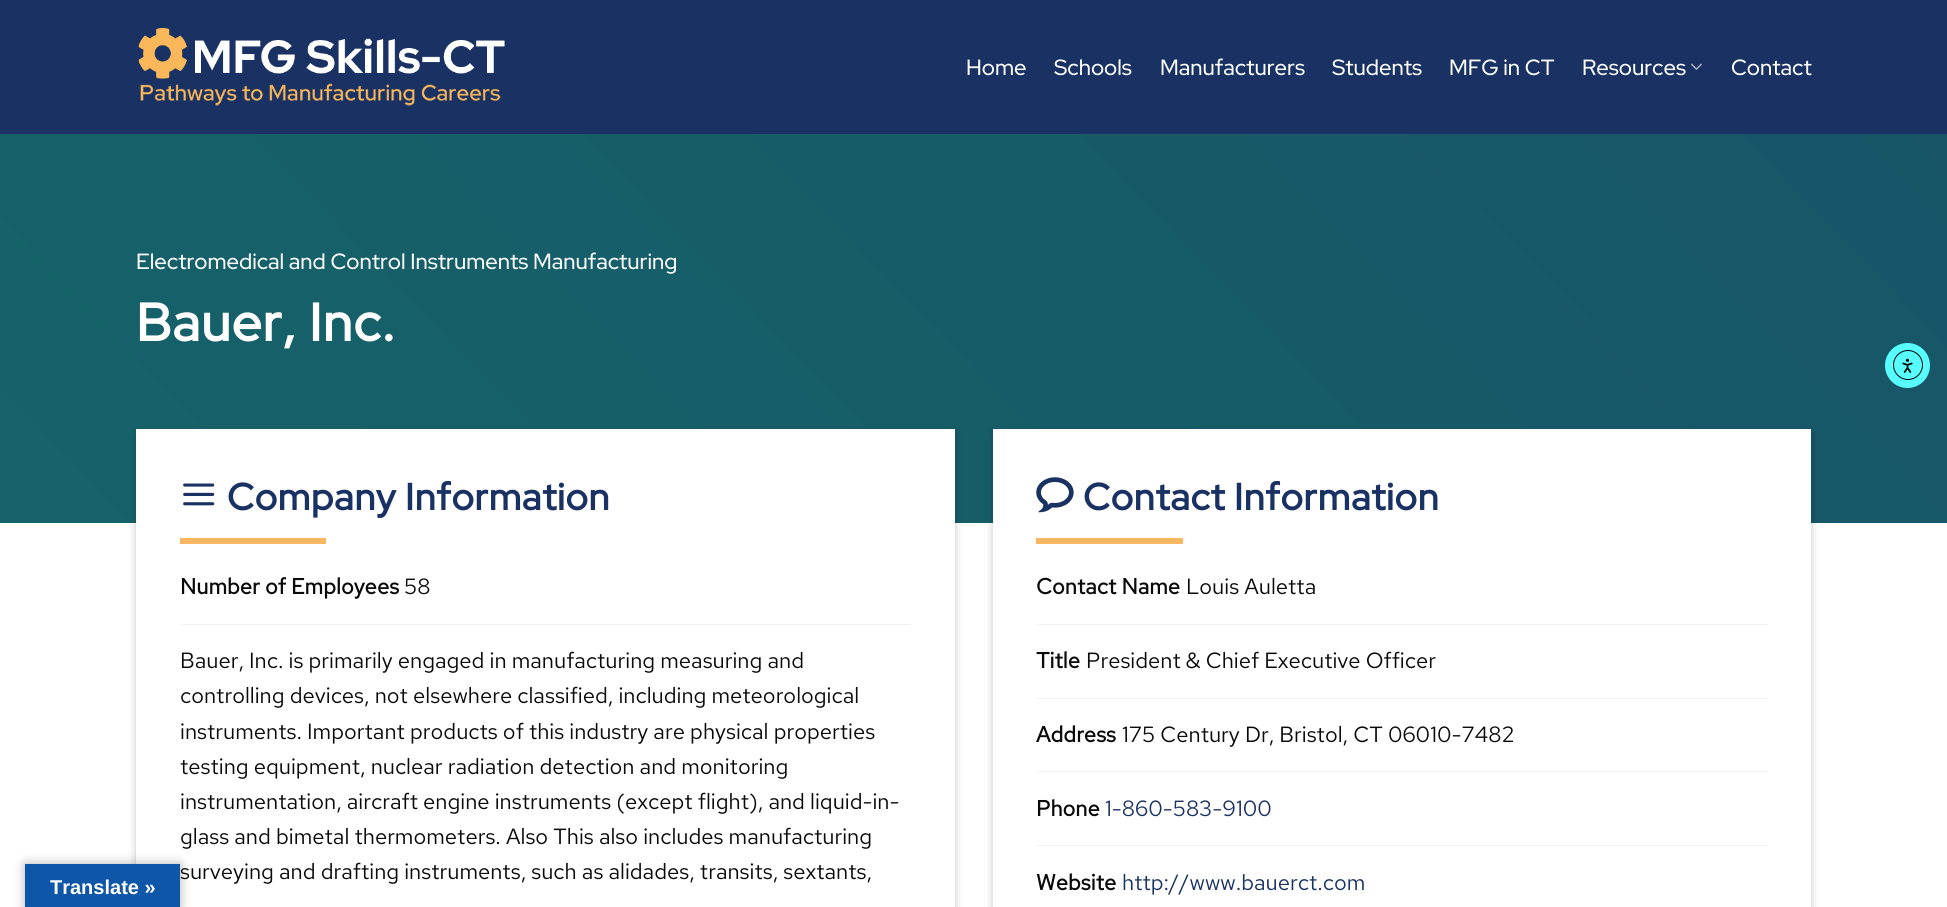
#include <cairo.h>
#include <math.h>
#include <stddef.h>


static void rgb(cairo_t *cr, int r, int g, int b)
{
	cairo_set_source_rgb(cr, r / 255.0, g / 255.0, b / 255.0);
}

static void face(cairo_t *cr, const char *family, double size, int italic, int bold)
{
	cairo_select_font_face(cr, family, italic ? CAIRO_FONT_SLANT_ITALIC : CAIRO_FONT_SLANT_NORMAL,
		bold ? CAIRO_FONT_WEIGHT_BOLD : CAIRO_FONT_WEIGHT_NORMAL);
	cairo_set_font_size(cr, size);
}

static void label(cairo_t *cr, double x, double y, const char *s)
{
	cairo_move_to(cr, x, y);
	cairo_show_text(cr, s);
}

static void tracked(cairo_t *cr, double x, double y, const char *s, double letter, double word)
{
	cairo_move_to(cr, x, y);
	while (*s) {
		char ch[5] = {0};
		int n = 0;
		do ch[n++] = *s++; while ((*s & 0xC0) == 0x80);
		cairo_show_text(cr, ch);
		cairo_rel_move_to(cr, letter + word * (*ch == ' '), 0);
	}
}

static void rect(cairo_t *cr, double x, double y, double w, double h)
{
	cairo_rectangle(cr, x, y, w, h);
	cairo_fill(cr);
}

static void rrect(cairo_t *cr, double x, double y, double w, double h, double r)
{
	cairo_new_sub_path(cr);
	cairo_arc(cr, x + w - r, y + h - r, r, 0, M_PI / 2);
	cairo_arc(cr, x + r, y + h - r, r, M_PI / 2, M_PI);
	cairo_arc(cr, x + r, y + r, r, M_PI, 1.5 * M_PI);
	cairo_arc(cr, x + w - r, y + r, r, 1.5 * M_PI, 2 * M_PI);
	cairo_close_path(cr);
}

static void soft_shadow(cairo_t *cr, double x, double y, double w, double h, double r, double blur, double alpha)
{
	cairo_push_group_with_content(cr, CAIRO_CONTENT_ALPHA);
	cairo_set_operator(cr, CAIRO_OPERATOR_SOURCE);
	for (int i = 15; i >= -15 && fmin(w, h) + blur * i / 3 > 0; i -= 2) {
		double e = blur * i / 6;
		cairo_set_source_rgba(cr, 0, 0, 0, alpha * erfc((i - 1) / 8.5) / 2);
		rrect(cr, x - e, y - e, w + 2 * e, h + 2 * e, fmax(0, fmin(r + e + blur * .6, fmin(w, h) / 2 + e)));
		cairo_fill(cr);
	}
	cairo_pattern_t *soft = cairo_pop_group(cr);
	cairo_mask(cr, soft);
	cairo_pattern_destroy(soft);
}

static void image(cairo_t *cr, const char *path, double x, double y, double w, double h)
{
	cairo_surface_t *image = cairo_image_surface_create_from_png(path);
	cairo_save(cr);
	cairo_set_source_surface(cr, image, x, y);
	cairo_rectangle(cr, x, y, w, h);
	cairo_fill(cr);
	cairo_restore(cr);
	cairo_surface_destroy(image);
}

static void draw(cairo_t *cr) {
	cairo_pattern_t *gradient;
	rgb(cr, 255, 255, 255);
	cairo_paint(cr);
	rgb(cr, 26, 50, 99);
	rect(cr, 0, 0, 1947, 134);
	image(cr, "image0.png", 138, 28, 367, 78);
	face(cr, "Red Hat Display Medium", 22, 0, 0);
	rgb(cr, 255, 255, 255);
	label(cr, 966, 75, "Home");
	label(cr, 1054, 75, "Schools");
	label(cr, 1160, 75, "Manufacturers");
	label(cr, 1332, 75, "Students");
	label(cr, 1449, 75, "MFG in CT");
	label(cr, 1582, 75, "Resources");
	image(cr, "image1.png", 1690, 63, 12, 7);
	label(cr, 1731, 75, "Contact");
	gradient = cairo_pattern_create_linear(1491, 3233, 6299, -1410);
	cairo_pattern_add_color_stop_rgba(gradient, 0, 0.082, 0.416, 0.416, 1);
	cairo_pattern_add_color_stop_rgba(gradient, 1, 0.102, 0.196, 0.388, 1);
	cairo_set_source(cr, gradient);
	cairo_pattern_destroy(gradient);
	rect(cr, 0, 134, 1947, 389);
	rgb(cr, 255, 255, 255);
	label(cr, 136, 269, "Electromedical and Control Instruments Manufacturing");
	face(cr, "Red Hat Display", 53, 0, 1);
	tracked(cr, 136, 341, "Bauer, Inc.", 1, 0);
	rgb(cr, 0, 0, 0);
	soft_shadow(cr, 136, 433, 819, 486, 0, 4, 0.23);
	rgb(cr, 255, 255, 255);
	rect(cr, 136, 429, 819, 478);
	image(cr, "image2.png", 183, 483, 32, 23);
	face(cr, "Red Hat Display", 37.4, 0, 1);
	rgb(cr, 26, 50, 99);
	tracked(cr, 227, 510, "Company Information", 0.75, 0);
	rgb(cr, 249, 183, 98);
	rect(cr, 180, 538, 146, 6);
	face(cr, "Red Hat Text", 22, 0, 1);
	rgb(cr, 10, 10, 10);
	label(cr, 180, 594, "Number of Employees");
	face(cr, "Red Hat Text", 22, 0, 0);
	label(cr, 404, 594, "58");
	rgb(cr, 242, 242, 242);
	rect(cr, 180, 624, 731, 1);
	rgb(cr, 10, 10, 10);
	label(cr, 180, 668, "Bauer, Inc. is primarily engaged in manufacturing measuring and");
	label(cr, 180, 703, "controlling devices, not elsewhere classified, including meteorological");
	label(cr, 180, 739, "instruments. Important products of this industry are physical properties");
	label(cr, 180, 774, "testing equipment, nuclear radiation detection and monitoring");
	label(cr, 180, 809, "instrumentation, aircraft engine instruments (except flight), and liquid-in-");
	label(cr, 180, 844, "glass and bimetal thermometers. Also This also includes manufacturing");
	label(cr, 180, 879, "surveying and drafting instruments, such as alidades, transits, sextants,");
	rgb(cr, 0, 0, 0);
	soft_shadow(cr, 993, 433, 818, 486, 0, 4, 0.23);
	rgb(cr, 255, 255, 255);
	rect(cr, 993, 429, 818, 478);
	image(cr, "image3.png", 1036, 477, 38, 36);
	face(cr, "Red Hat Display", 37.4, 0, 1);
	rgb(cr, 26, 50, 99);
	tracked(cr, 1083, 510, "Contact Information", 0.75, 0);
	rgb(cr, 249, 183, 98);
	rect(cr, 1036, 538, 147, 6);
	face(cr, "Red Hat Text", 22, 0, 1);
	rgb(cr, 10, 10, 10);
	label(cr, 1036, 594, "Contact Name");
	face(cr, "Red Hat Text", 22, 0, 0);
	label(cr, 1186, 594, "Louis Auletta");
	rgb(cr, 242, 242, 242);
	rect(cr, 1036, 624, 732, 1);
	face(cr, "Red Hat Text", 22, 0, 1);
	rgb(cr, 10, 10, 10);
	label(cr, 1036, 668, "Title");
	face(cr, "Red Hat Text", 22, 0, 0);
	label(cr, 1086, 668, "President & Chief Executive Officer");
	rgb(cr, 242, 242, 242);
	rect(cr, 1036, 698, 732, 1);
	face(cr, "Red Hat Text", 22, 0, 1);
	rgb(cr, 10, 10, 10);
	label(cr, 1036, 742, "Address");
	face(cr, "Red Hat Text", 22, 0, 0);
	label(cr, 1122, 742, "175 Century Dr, Bristol, CT 06010-7482");
	rgb(cr, 242, 242, 242);
	rect(cr, 1036, 771, 732, 1);
	face(cr, "Red Hat Text", 22, 0, 1);
	rgb(cr, 10, 10, 10);
	label(cr, 1036, 816, "Phone");
	face(cr, "Red Hat Text", 22, 0, 0);
	rgb(cr, 26, 50, 99);
	label(cr, 1105, 816, "1-860-583-9100");
	rgb(cr, 242, 242, 242);
	rect(cr, 1036, 845, 732, 1);
	face(cr, "Red Hat Text", 22, 0, 1);
	rgb(cr, 10, 10, 10);
	label(cr, 1036, 890, "Website");
	face(cr, "Red Hat Text", 22, 0, 0);
	rgb(cr, 26, 50, 99);
	label(cr, 1122, 890, "http://www.bauerct.com");
	rgb(cr, 88, 255, 255);
	cairo_new_path(cr);
	cairo_arc(cr, 1907.5, 365.5, 22.5, 0, 2 * M_PI);
	cairo_fill(cr);
	cairo_arc(cr, 1908, 365, 14.5, 0, 2 * M_PI);
	rgb(cr, 0, 0, 0);
	cairo_set_line_width(cr, 1);
	cairo_stroke(cr);
	image(cr, "image4.png", 1902, 358, 11, 15);
	rgb(cr, 0, 0, 0);
	soft_shadow(cr, 25, 864, 155, 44, 0, 5.5, 0.3);
	rgb(cr, 13, 86, 168);
	rect(cr, 25, 864, 155, 43);
	face(cr, "Liberation Sans", 20, 0, 1);
	rgb(cr, 255, 255, 255);
	label(cr, 50, 894, "Translate »");
}

int main(void) {
	cairo_surface_t *surface = cairo_image_surface_create(CAIRO_FORMAT_RGB24, 1947, 907);
	cairo_t *cr = cairo_create(surface);
	cairo_font_options_t *options = cairo_font_options_create();
	cairo_font_options_set_hint_metrics(options, CAIRO_HINT_METRICS_OFF);
	cairo_font_options_set_hint_style(options, CAIRO_HINT_STYLE_NONE);
	cairo_set_font_options(cr, options);
	cairo_set_miter_limit(cr, 4);
	draw(cr);
	cairo_surface_write_to_png(surface, "render.png");
	cairo_font_options_destroy(options);
	cairo_destroy(cr);
	cairo_surface_destroy(surface);
	return 0;
}
